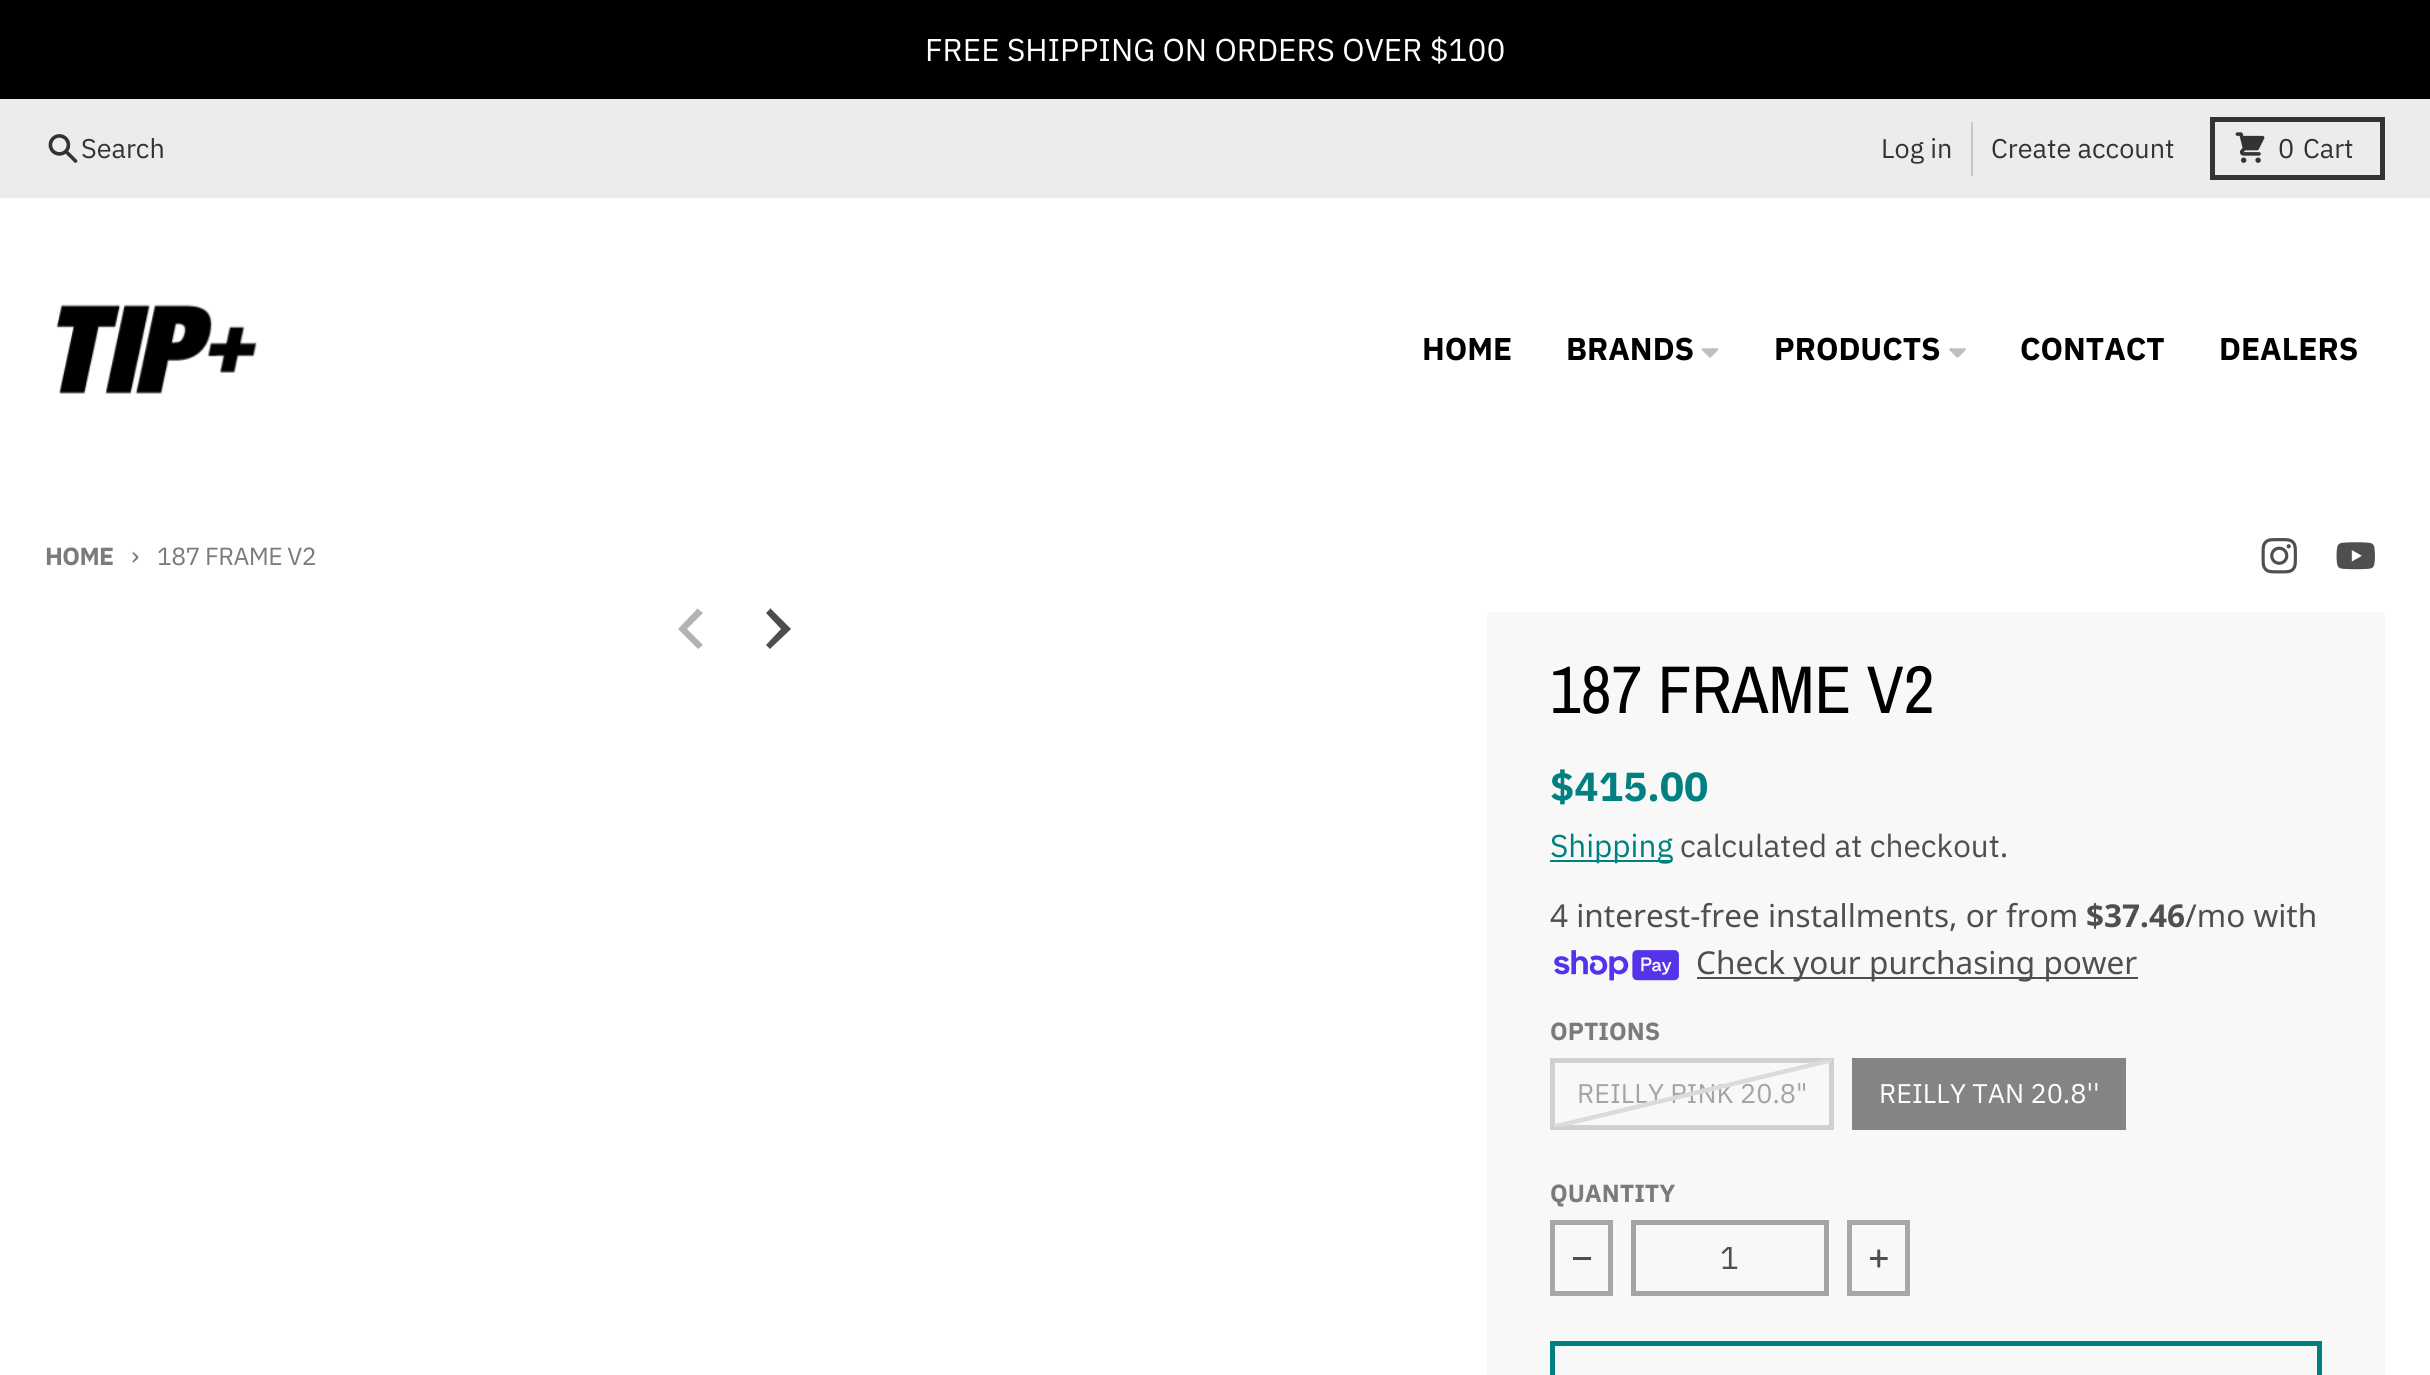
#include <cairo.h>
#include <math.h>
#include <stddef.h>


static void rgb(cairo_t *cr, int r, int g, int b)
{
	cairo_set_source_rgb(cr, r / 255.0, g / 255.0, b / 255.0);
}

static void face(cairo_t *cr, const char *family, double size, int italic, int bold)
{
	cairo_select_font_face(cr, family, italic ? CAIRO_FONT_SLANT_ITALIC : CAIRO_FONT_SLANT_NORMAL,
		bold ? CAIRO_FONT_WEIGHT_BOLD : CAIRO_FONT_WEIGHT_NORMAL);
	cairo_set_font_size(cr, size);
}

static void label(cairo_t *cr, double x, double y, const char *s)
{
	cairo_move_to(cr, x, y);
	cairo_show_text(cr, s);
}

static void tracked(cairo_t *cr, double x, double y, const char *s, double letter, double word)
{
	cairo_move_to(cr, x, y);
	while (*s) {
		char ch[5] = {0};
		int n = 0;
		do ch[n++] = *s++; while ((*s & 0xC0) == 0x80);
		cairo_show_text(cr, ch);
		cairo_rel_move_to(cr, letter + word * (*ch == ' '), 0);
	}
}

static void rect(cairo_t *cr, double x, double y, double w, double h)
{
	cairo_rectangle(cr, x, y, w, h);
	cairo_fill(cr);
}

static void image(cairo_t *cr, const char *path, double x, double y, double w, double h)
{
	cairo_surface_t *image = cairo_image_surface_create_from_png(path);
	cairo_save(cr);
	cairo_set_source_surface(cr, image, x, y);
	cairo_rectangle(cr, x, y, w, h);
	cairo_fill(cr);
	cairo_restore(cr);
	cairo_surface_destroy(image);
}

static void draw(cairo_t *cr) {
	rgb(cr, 236, 236, 236);
	cairo_paint(cr);
	rgb(cr, 0, 0, 0);
	rect(cr, 0, 0, 2430, 99);
	face(cr, "IBM Plex Sans", 31.5, 0, 0);
	rgb(cr, 255, 255, 255);
	label(cr, 925, 61, "FREE SHIPPING ON ORDERS OVER $100");
	image(cr, "image0.png", 48, 134, 30, 29);
	face(cr, "IBM Plex Sans", 27, 0, 0);
	rgb(cr, 51, 51, 51);
	label(cr, 81, 158, "Search");
	label(cr, 1881, 158, "Log in");
	rgb(cr, 199, 199, 199);
	rect(cr, 1971, 122, 2, 54);
	rgb(cr, 51, 51, 51);
	label(cr, 1991, 158, "Create account");
	cairo_rectangle(cr, 2212.5, 119.5, 170, 58);
	cairo_set_line_width(cr, 5);
	cairo_stroke(cr);
	image(cr, "image1.png", 2235, 132, 30, 31);
	label(cr, 2278, 158, "0");
	label(cr, 2303, 158, "Cart");
	rgb(cr, 255, 255, 255);
	rect(cr, 0, 198, 2430, 1177);
	image(cr, "image2.png", 56, 304, 201, 90);
	face(cr, "IBM Plex Sans", 31.5, 0, 1);
	rgb(cr, 0, 0, 0);
	label(cr, 1422, 360, "HOME");
	label(cr, 1566, 360, "BRANDS");
	image(cr, "image3.png", 1701, 348, 18, 10);
	label(cr, 1774, 360, "PRODUCTS");
	image(cr, "image4.png", 1949, 348, 17, 10);
	label(cr, 2020, 360, "CONTACT");
	label(cr, 2219, 360, "DEALERS");
	face(cr, "IBM Plex Sans", 24.75, 0, 1);
	rgb(cr, 123, 123, 123);
	tracked(cr, 45, 565, "HOME", -0.6, 0);
	face(cr, "IBM Plex Sans", 27, 0, 0);
	tracked(cr, 131, 565, "›", -0.6, 0);
	face(cr, "IBM Plex Sans", 24.75, 0, 0);
	tracked(cr, 157, 565, "187 FRAME V2", -0.6, 0);
	image(cr, "image5.png", 2261, 538, 36, 36);
	image(cr, "image6.png", 2336, 542, 39, 28);
	rgb(cr, 179, 179, 179);
	cairo_new_path(cr);
	cairo_move_to(cr, 698, 609);
	cairo_line_to(cr, 703, 613);
	cairo_line_to(cr, 687, 629);
	cairo_line_to(cr, 703, 645);
	cairo_line_to(cr, 698, 649);
	cairo_line_to(cr, 678, 629);
	cairo_line_to(cr, 698, 608);
	cairo_close_path(cr);
	cairo_fill(cr);
	rgb(cr, 77, 77, 77);
	cairo_new_path(cr);
	cairo_move_to(cr, 770, 609);
	cairo_line_to(cr, 766, 613);
	cairo_line_to(cr, 781, 629);
	cairo_line_to(cr, 766, 645);
	cairo_line_to(cr, 770, 649);
	cairo_line_to(cr, 791, 629);
	cairo_line_to(cr, 770, 608);
	cairo_close_path(cr);
	cairo_fill(cr);
	rgb(cr, 248, 248, 248);
	rect(cr, 1487, 612, 898, 763);
	face(cr, "Archivo Narrow", 67.5, 0, 0);
	rgb(cr, 0, 0, 0);
	label(cr, 1550, 713, "187 FRAME V2");
	face(cr, "IBM Plex Sans", 40.5, 0, 1);
	rgb(cr, 0, 128, 128);
	label(cr, 1550, 801, "$415.00");
	rect(cr, 1550, 860, 122, 2);
	face(cr, "IBM Plex Sans", 31.5, 0, 0);
	label(cr, 1550, 857, "Shipping");
	rgb(cr, 79, 79, 79);
	label(cr, 1680, 857, "calculated at checkout.");
	face(cr, "Noto Sans", 31.5, 0, 0);
	label(cr, 1550, 927, "4 interest-free installments, or from");
	face(cr, "Noto Sans", 31.5, 0, 1);
	label(cr, 2086, 927, "$37.46");
	face(cr, "Noto Sans", 31.5, 0, 0);
	label(cr, 2185, 927, "/mo with");
	image(cr, "image7.png", 1554, 950, 125, 31);
	rect(cr, 1697, 977, 441, 2);
	label(cr, 1696, 974, "Check your purchasing power");
	face(cr, "IBM Plex Sans", 24.75, 0, 1);
	rgb(cr, 123, 123, 123);
	label(cr, 1550, 1040, "OPTIONS");
	cairo_rectangle(cr, 1552.5, 1060.5, 279, 67);
	rgb(cr, 208, 208, 208);
	cairo_stroke(cr);
	face(cr, "IBM Plex Sans", 27, 0, 0);
	rgb(cr, 164, 164, 164);
	label(cr, 1577, 1103, "REILLY PINK 20.8\"");
	cairo_save(cr);
	cairo_rectangle(cr, 1553, 1060, 279, 67);
	cairo_clip(cr);
	cairo_new_path(cr);
	cairo_move_to(cr, 1552.5, 1127);
	cairo_line_to(cr, 1832.5, 1060);
	rgb(cr, 219, 219, 219);
	cairo_set_line_width(cr, 4.5);
	cairo_stroke(cr);
	cairo_restore(cr);
	rgb(cr, 132, 132, 132);
	rect(cr, 1852, 1058, 274, 72);
	rgb(cr, 255, 255, 255);
	label(cr, 1879, 1103, "REILLY TAN 20.8''");
	face(cr, "IBM Plex Sans", 24.75, 0, 1);
	rgb(cr, 123, 123, 123);
	label(cr, 1550, 1202, "QUANTITY");
	cairo_rectangle(cr, 1552.5, 1222.5, 58, 71);
	rgb(cr, 167, 167, 167);
	cairo_stroke(cr);
	rgb(cr, 79, 79, 79);
	rect(cr, 1573, 1257, 18, 3);
	cairo_rectangle(cr, 1633.5, 1222.5, 193, 71);
	rgb(cr, 164, 164, 164);
	cairo_stroke(cr);
	face(cr, "IBM Plex Sans", 31.5, 0, 0);
	rgb(cr, 79, 79, 79);
	label(cr, 1720, 1269, "1");
	cairo_rectangle(cr, 1849.5, 1222.5, 58, 71);
	rgb(cr, 167, 167, 167);
	cairo_stroke(cr);
	image(cr, "image8.png", 1870, 1249, 18, 19);
	cairo_rectangle(cr, 1552.5, 1343.5, 767, 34);
	rgb(cr, 0, 128, 128);
	cairo_stroke(cr);
}

int main(void) {
	cairo_surface_t *surface = cairo_image_surface_create(CAIRO_FORMAT_RGB24, 2430, 1375);
	cairo_t *cr = cairo_create(surface);
	cairo_font_options_t *options = cairo_font_options_create();
	cairo_font_options_set_hint_metrics(options, CAIRO_HINT_METRICS_OFF);
	cairo_font_options_set_hint_style(options, CAIRO_HINT_STYLE_NONE);
	cairo_set_font_options(cr, options);
	cairo_set_miter_limit(cr, 4);
	draw(cr);
	cairo_surface_write_to_png(surface, "render.png");
	cairo_font_options_destroy(options);
	cairo_destroy(cr);
	cairo_surface_destroy(surface);
	return 0;
}
